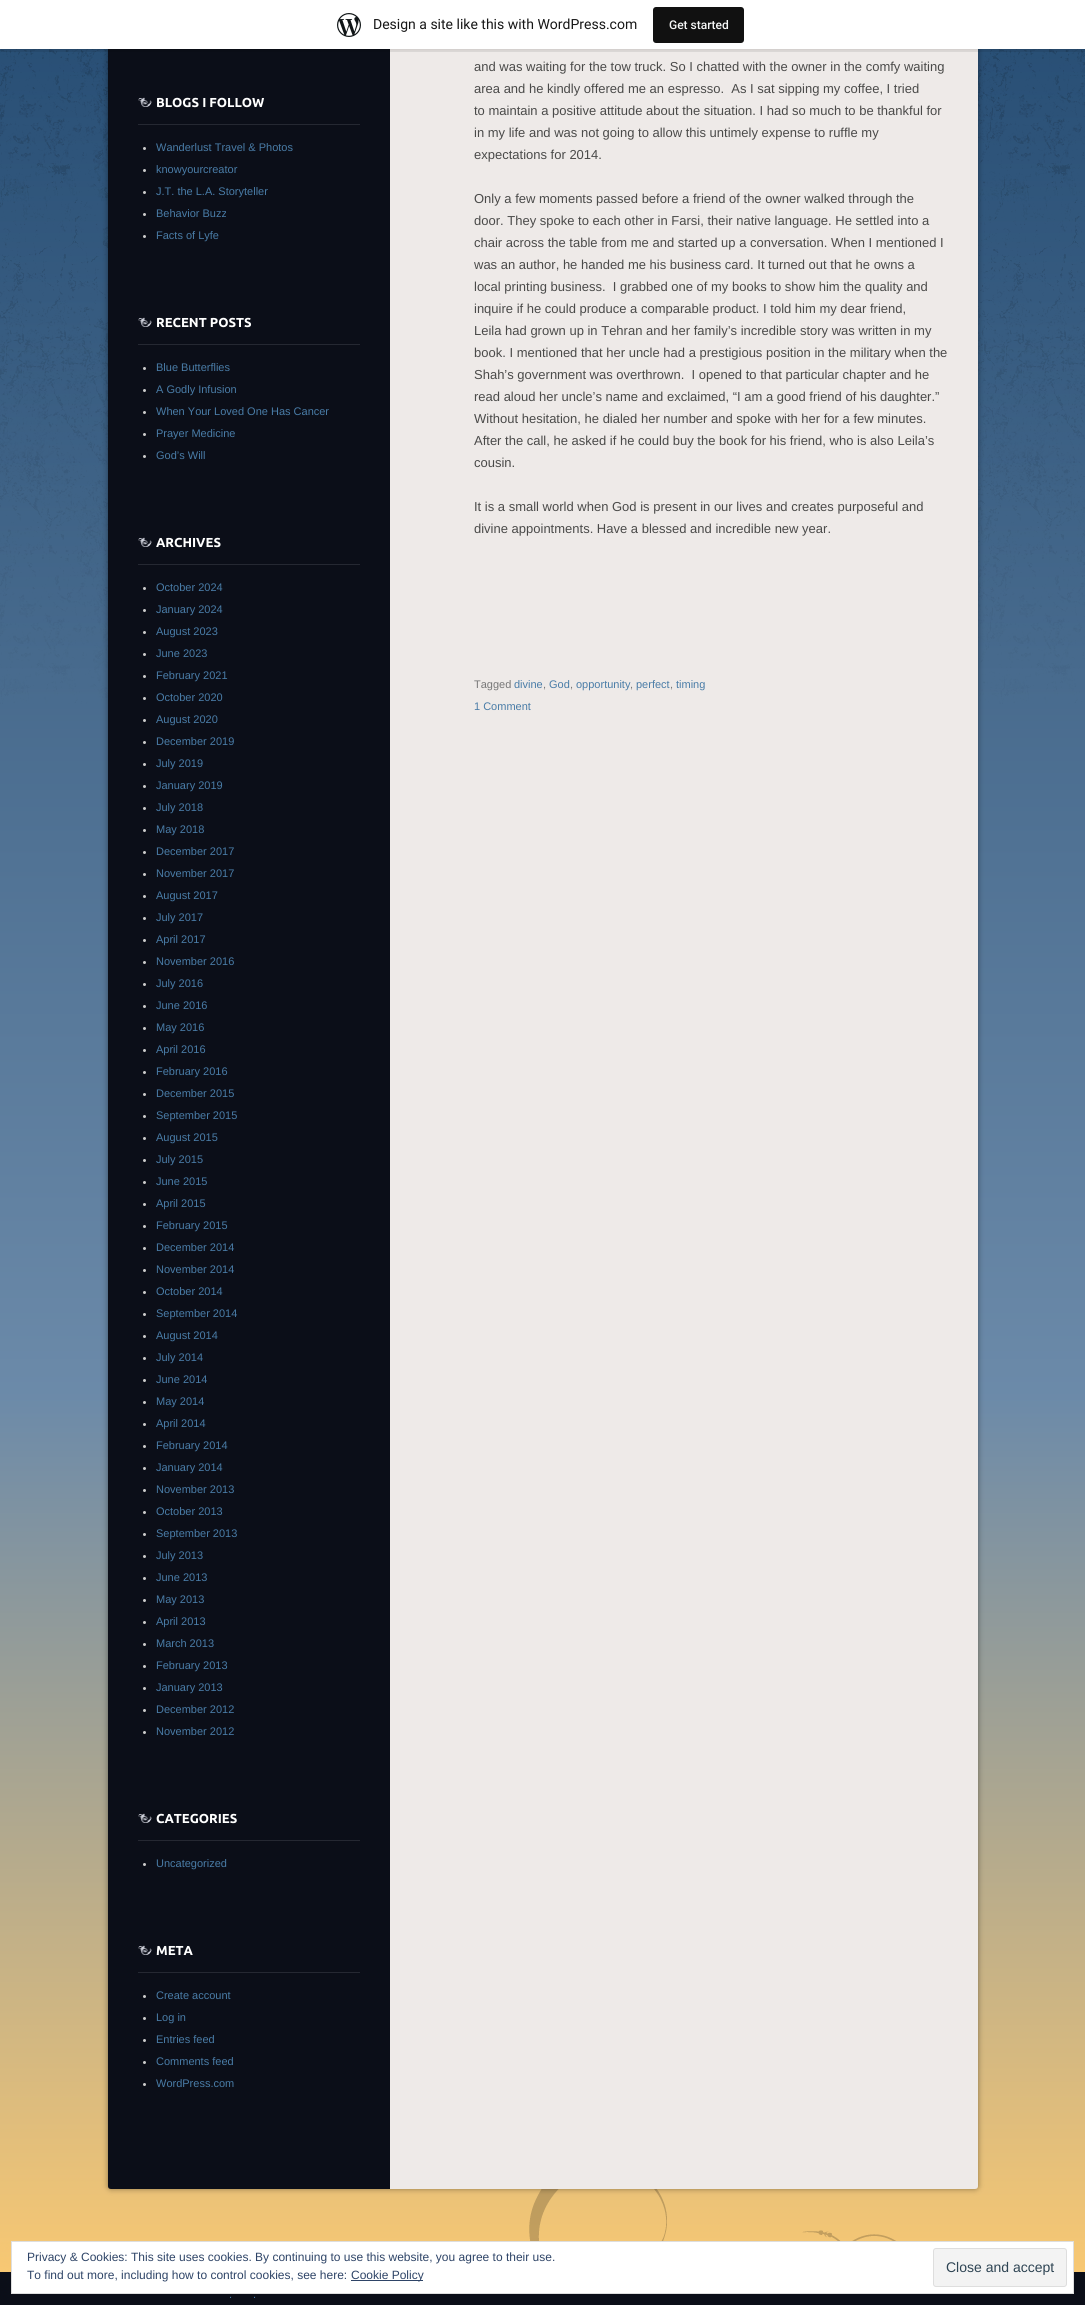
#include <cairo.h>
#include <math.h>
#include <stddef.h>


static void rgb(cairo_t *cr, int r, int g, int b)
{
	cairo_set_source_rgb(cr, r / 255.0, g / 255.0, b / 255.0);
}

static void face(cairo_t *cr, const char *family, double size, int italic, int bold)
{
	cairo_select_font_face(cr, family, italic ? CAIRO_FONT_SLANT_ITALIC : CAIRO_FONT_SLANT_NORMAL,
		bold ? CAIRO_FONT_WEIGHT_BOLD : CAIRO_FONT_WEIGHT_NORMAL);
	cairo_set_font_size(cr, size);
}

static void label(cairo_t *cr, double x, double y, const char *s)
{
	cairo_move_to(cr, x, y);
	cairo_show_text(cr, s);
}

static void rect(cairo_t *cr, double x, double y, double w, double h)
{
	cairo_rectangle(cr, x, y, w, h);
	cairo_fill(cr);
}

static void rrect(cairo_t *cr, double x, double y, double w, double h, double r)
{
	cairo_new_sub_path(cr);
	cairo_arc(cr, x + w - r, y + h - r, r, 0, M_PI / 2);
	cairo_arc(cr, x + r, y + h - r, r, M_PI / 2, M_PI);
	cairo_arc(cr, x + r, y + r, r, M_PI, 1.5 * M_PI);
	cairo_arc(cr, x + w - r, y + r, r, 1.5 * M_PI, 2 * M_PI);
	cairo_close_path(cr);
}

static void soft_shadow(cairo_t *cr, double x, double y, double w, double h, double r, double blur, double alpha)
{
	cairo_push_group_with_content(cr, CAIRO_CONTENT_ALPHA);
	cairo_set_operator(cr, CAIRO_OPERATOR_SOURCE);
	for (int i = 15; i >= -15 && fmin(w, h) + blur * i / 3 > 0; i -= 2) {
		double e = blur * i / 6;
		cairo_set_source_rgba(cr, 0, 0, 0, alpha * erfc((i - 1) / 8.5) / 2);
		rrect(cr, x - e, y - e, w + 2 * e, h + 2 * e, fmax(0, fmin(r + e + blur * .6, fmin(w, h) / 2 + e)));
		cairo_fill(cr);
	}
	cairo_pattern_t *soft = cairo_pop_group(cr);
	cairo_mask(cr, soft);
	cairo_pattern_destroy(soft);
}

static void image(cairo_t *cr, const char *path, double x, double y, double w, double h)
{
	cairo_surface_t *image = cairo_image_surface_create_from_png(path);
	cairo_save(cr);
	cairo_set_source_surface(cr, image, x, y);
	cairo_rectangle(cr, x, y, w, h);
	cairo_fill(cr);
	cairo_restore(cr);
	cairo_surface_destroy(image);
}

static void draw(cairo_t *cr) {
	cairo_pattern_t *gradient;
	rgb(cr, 255, 255, 255);
	cairo_paint(cr);
	gradient = cairo_pattern_create_linear(0, 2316, 0, -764);
	cairo_pattern_add_color_stop_rgba(gradient, 0, 1, 0.796, 0.439, 1);
	cairo_pattern_add_color_stop_rgba(gradient, 0.3, 0.42, 0.541, 0.663, 1);
	cairo_pattern_add_color_stop_rgba(gradient, 1, 0.004, 0.173, 0.341, 1);
	cairo_set_source(cr, gradient);
	cairo_pattern_destroy(gradient);
	rect(cr, 0, 49, 1085, 2223);
	image(cr, "image1.png", 0, 49, 1085, 655);
	image(cr, "image2.png", 529, 2189, 367, 52);
	rgb(cr, 0, 0, 0);
	soft_shadow(cr, 108, -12, 870, 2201, 3, 3, 0.4);
	image(cr, "image3.png", 108, 49, 870, 2140);
	soft_shadow(cr, 0, 1, 1085, 49, 0, 1, 0.05);
	cairo_set_source_rgba(cr, 0, 0, 0, 0.08);
	cairo_new_path(cr);
	cairo_move_to(cr, 1, 49);
	cairo_line_to(cr, 1, 52);
	cairo_line_to(cr, 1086, 52);
	cairo_line_to(cr, 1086, 3);
	cairo_line_to(cr, 1085, 3);
	cairo_line_to(cr, 1085, 49);
	cairo_close_path(cr);
	cairo_fill(cr);
	rgb(cr, 255, 255, 255);
	rect(cr, 0, 0, 1085, 49);
	image(cr, "image0.png", 337, 13, 24, 24);
	face(cr, "Roboto", 14, 0, 0);
	rgb(cr, 23, 23, 23);
	label(cr, 373, 29, "Design a site like this with WordPress.com");
	rgb(cr, 17, 17, 17);
	rrect(cr, 653, 7, 91, 36, 3);
	cairo_fill(cr);
	face(cr, "Roboto Medium", 12, 0, 0);
	rgb(cr, 246, 247, 247);
	label(cr, 669, 29, "Get started");
	image(cr, "image4.png", 138, 97, 14, 10);
	rgb(cr, 37, 40, 50);
	rect(cr, 138, 124, 222, 1);
	face(cr, "Ubuntu", 13, 0, 1);
	rgb(cr, 255, 255, 255);
	label(cr, 156, 107, "BLOGS I FOLLOW");
	rgb(cr, 204, 204, 204);
	cairo_new_path(cr);
	cairo_arc(cr, 144.5, 148.5, 1.5, 0, 2 * M_PI);
	cairo_fill(cr);
	face(cr, "Liberation Sans", 11, 0, 0);
	rgb(cr, 73, 124, 167);
	label(cr, 156, 151, "Wanderlust Travel & Photos");
	rgb(cr, 204, 204, 204);
	cairo_new_path(cr);
	cairo_arc(cr, 144.5, 170.5, 1.5, 0, 2 * M_PI);
	cairo_fill(cr);
	rgb(cr, 73, 124, 167);
	label(cr, 156, 173, "knowyourcreator");
	rgb(cr, 204, 204, 204);
	cairo_new_path(cr);
	cairo_arc(cr, 144.5, 192.5, 1.5, 0, 2 * M_PI);
	cairo_fill(cr);
	rgb(cr, 73, 124, 167);
	label(cr, 156, 195, "J.T. the L.A. Storyteller");
	rgb(cr, 204, 204, 204);
	cairo_new_path(cr);
	cairo_arc(cr, 144.5, 214.5, 1.5, 0, 2 * M_PI);
	cairo_fill(cr);
	rgb(cr, 73, 124, 167);
	label(cr, 156, 217, "Behavior Buzz");
	rgb(cr, 204, 204, 204);
	cairo_new_path(cr);
	cairo_arc(cr, 144.5, 236.5, 1.5, 0, 2 * M_PI);
	cairo_fill(cr);
	rgb(cr, 73, 124, 167);
	label(cr, 156, 239, "Facts of Lyfe");
	image(cr, "image4.png", 138, 317, 14, 10);
	rgb(cr, 37, 40, 50);
	rect(cr, 138, 344, 222, 1);
	face(cr, "Ubuntu", 13, 0, 1);
	rgb(cr, 255, 255, 255);
	label(cr, 156, 327, "RECENT POSTS");
	rgb(cr, 204, 204, 204);
	cairo_new_path(cr);
	cairo_arc(cr, 144.5, 368.5, 1.5, 0, 2 * M_PI);
	cairo_fill(cr);
	face(cr, "Liberation Sans", 11, 0, 0);
	rgb(cr, 73, 124, 167);
	label(cr, 156, 371, "Blue Butterflies");
	rgb(cr, 204, 204, 204);
	cairo_new_path(cr);
	cairo_arc(cr, 144.5, 390.5, 1.5, 0, 2 * M_PI);
	cairo_fill(cr);
	rgb(cr, 73, 124, 167);
	label(cr, 156, 393, "A Godly Infusion");
	rgb(cr, 204, 204, 204);
	cairo_new_path(cr);
	cairo_arc(cr, 144.5, 412.5, 1.5, 0, 2 * M_PI);
	cairo_fill(cr);
	rgb(cr, 73, 124, 167);
	label(cr, 156, 415, "When Your Loved One Has Cancer");
	rgb(cr, 204, 204, 204);
	cairo_new_path(cr);
	cairo_arc(cr, 144.5, 434.5, 1.5, 0, 2 * M_PI);
	cairo_fill(cr);
	rgb(cr, 73, 124, 167);
	label(cr, 156, 437, "Prayer Medicine");
	rgb(cr, 204, 204, 204);
	cairo_new_path(cr);
	cairo_arc(cr, 144.5, 456.5, 1.5, 0, 2 * M_PI);
	cairo_fill(cr);
	rgb(cr, 73, 124, 167);
	label(cr, 156, 459, "God’s Will");
	image(cr, "image4.png", 138, 537, 14, 10);
	rgb(cr, 37, 40, 50);
	rect(cr, 138, 564, 222, 1);
	face(cr, "Ubuntu", 13, 0, 1);
	rgb(cr, 255, 255, 255);
	label(cr, 156, 547, "ARCHIVES");
	rgb(cr, 204, 204, 204);
	cairo_new_path(cr);
	cairo_arc(cr, 144.5, 588.5, 1.5, 0, 2 * M_PI);
	cairo_fill(cr);
	face(cr, "Liberation Sans", 11, 0, 0);
	rgb(cr, 73, 124, 167);
	label(cr, 156, 591, "October 2024");
	rgb(cr, 204, 204, 204);
	cairo_new_path(cr);
	cairo_arc(cr, 144.5, 610.5, 1.5, 0, 2 * M_PI);
	cairo_fill(cr);
	rgb(cr, 73, 124, 167);
	label(cr, 156, 613, "January 2024");
	rgb(cr, 204, 204, 204);
	cairo_new_path(cr);
	cairo_arc(cr, 144.5, 632.5, 1.5, 0, 2 * M_PI);
	cairo_fill(cr);
	rgb(cr, 73, 124, 167);
	label(cr, 156, 635, "August 2023");
	rgb(cr, 204, 204, 204);
	cairo_new_path(cr);
	cairo_arc(cr, 144.5, 654.5, 1.5, 0, 2 * M_PI);
	cairo_fill(cr);
	rgb(cr, 73, 124, 167);
	label(cr, 156, 657, "June 2023");
	rgb(cr, 204, 204, 204);
	cairo_new_path(cr);
	cairo_arc(cr, 144.5, 676.5, 1.5, 0, 2 * M_PI);
	cairo_fill(cr);
	rgb(cr, 73, 124, 167);
	label(cr, 156, 679, "February 2021");
	rgb(cr, 204, 204, 204);
	cairo_new_path(cr);
	cairo_arc(cr, 144.5, 698.5, 1.5, 0, 2 * M_PI);
	cairo_fill(cr);
	rgb(cr, 73, 124, 167);
	label(cr, 156, 701, "October 2020");
	rgb(cr, 204, 204, 204);
	cairo_new_path(cr);
	cairo_arc(cr, 144.5, 720.5, 1.5, 0, 2 * M_PI);
	cairo_fill(cr);
	rgb(cr, 73, 124, 167);
	label(cr, 156, 723, "August 2020");
	rgb(cr, 204, 204, 204);
	cairo_new_path(cr);
	cairo_arc(cr, 144.5, 742.5, 1.5, 0, 2 * M_PI);
	cairo_fill(cr);
	rgb(cr, 73, 124, 167);
	label(cr, 156, 745, "December 2019");
	rgb(cr, 204, 204, 204);
	cairo_new_path(cr);
	cairo_arc(cr, 144.5, 764.5, 1.5, 0, 2 * M_PI);
	cairo_fill(cr);
	rgb(cr, 73, 124, 167);
	label(cr, 156, 767, "July 2019");
	rgb(cr, 204, 204, 204);
	cairo_new_path(cr);
	cairo_arc(cr, 144.5, 786.5, 1.5, 0, 2 * M_PI);
	cairo_fill(cr);
	rgb(cr, 73, 124, 167);
	label(cr, 156, 789, "January 2019");
	rgb(cr, 204, 204, 204);
	cairo_new_path(cr);
	cairo_arc(cr, 144.5, 808.5, 1.5, 0, 2 * M_PI);
	cairo_fill(cr);
	rgb(cr, 73, 124, 167);
	label(cr, 156, 811, "July 2018");
	rgb(cr, 204, 204, 204);
	cairo_new_path(cr);
	cairo_arc(cr, 144.5, 830.5, 1.5, 0, 2 * M_PI);
	cairo_fill(cr);
	rgb(cr, 73, 124, 167);
	label(cr, 156, 833, "May 2018");
	rgb(cr, 204, 204, 204);
	cairo_new_path(cr);
	cairo_arc(cr, 144.5, 852.5, 1.5, 0, 2 * M_PI);
	cairo_fill(cr);
	rgb(cr, 73, 124, 167);
	label(cr, 156, 855, "December 2017");
	rgb(cr, 204, 204, 204);
	cairo_new_path(cr);
	cairo_arc(cr, 144.5, 874.5, 1.5, 0, 2 * M_PI);
	cairo_fill(cr);
	rgb(cr, 73, 124, 167);
	label(cr, 156, 877, "November 2017");
	rgb(cr, 204, 204, 204);
	cairo_new_path(cr);
	cairo_arc(cr, 144.5, 896.5, 1.5, 0, 2 * M_PI);
	cairo_fill(cr);
	rgb(cr, 73, 124, 167);
	label(cr, 156, 899, "August 2017");
	rgb(cr, 204, 204, 204);
	cairo_new_path(cr);
	cairo_arc(cr, 144.5, 918.5, 1.5, 0, 2 * M_PI);
	cairo_fill(cr);
	rgb(cr, 73, 124, 167);
	label(cr, 156, 921, "July 2017");
	rgb(cr, 204, 204, 204);
	cairo_new_path(cr);
	cairo_arc(cr, 144.5, 940.5, 1.5, 0, 2 * M_PI);
	cairo_fill(cr);
	rgb(cr, 73, 124, 167);
	label(cr, 156, 943, "April 2017");
	rgb(cr, 204, 204, 204);
	cairo_new_path(cr);
	cairo_arc(cr, 144.5, 962.5, 1.5, 0, 2 * M_PI);
	cairo_fill(cr);
	rgb(cr, 73, 124, 167);
	label(cr, 156, 965, "November 2016");
	rgb(cr, 204, 204, 204);
	cairo_new_path(cr);
	cairo_arc(cr, 144.5, 984.5, 1.5, 0, 2 * M_PI);
	cairo_fill(cr);
	rgb(cr, 73, 124, 167);
	label(cr, 156, 987, "July 2016");
	rgb(cr, 204, 204, 204);
	cairo_new_path(cr);
	cairo_arc(cr, 144.5, 1006.5, 1.5, 0, 2 * M_PI);
	cairo_fill(cr);
	rgb(cr, 73, 124, 167);
	label(cr, 156, 1009, "June 2016");
	rgb(cr, 204, 204, 204);
	cairo_new_path(cr);
	cairo_arc(cr, 144.5, 1028.5, 1.5, 0, 2 * M_PI);
	cairo_fill(cr);
	rgb(cr, 73, 124, 167);
	label(cr, 156, 1031, "May 2016");
	rgb(cr, 204, 204, 204);
	cairo_new_path(cr);
	cairo_arc(cr, 144.5, 1050.5, 1.5, 0, 2 * M_PI);
	cairo_fill(cr);
	rgb(cr, 73, 124, 167);
	label(cr, 156, 1053, "April 2016");
	rgb(cr, 204, 204, 204);
	cairo_new_path(cr);
	cairo_arc(cr, 144.5, 1072.5, 1.5, 0, 2 * M_PI);
	cairo_fill(cr);
	rgb(cr, 73, 124, 167);
	label(cr, 156, 1075, "February 2016");
	rgb(cr, 204, 204, 204);
	cairo_new_path(cr);
	cairo_arc(cr, 144.5, 1094.5, 1.5, 0, 2 * M_PI);
	cairo_fill(cr);
	rgb(cr, 73, 124, 167);
	label(cr, 156, 1097, "December 2015");
	rgb(cr, 204, 204, 204);
	cairo_new_path(cr);
	cairo_arc(cr, 144.5, 1116.5, 1.5, 0, 2 * M_PI);
	cairo_fill(cr);
	rgb(cr, 73, 124, 167);
	label(cr, 156, 1119, "September 2015");
	rgb(cr, 204, 204, 204);
	cairo_new_path(cr);
	cairo_arc(cr, 144.5, 1138.5, 1.5, 0, 2 * M_PI);
	cairo_fill(cr);
	rgb(cr, 73, 124, 167);
	label(cr, 156, 1141, "August 2015");
	rgb(cr, 204, 204, 204);
	cairo_new_path(cr);
	cairo_arc(cr, 144.5, 1160.5, 1.5, 0, 2 * M_PI);
	cairo_fill(cr);
	rgb(cr, 73, 124, 167);
	label(cr, 156, 1163, "July 2015");
	rgb(cr, 204, 204, 204);
	cairo_new_path(cr);
	cairo_arc(cr, 144.5, 1182.5, 1.5, 0, 2 * M_PI);
	cairo_fill(cr);
	rgb(cr, 73, 124, 167);
	label(cr, 156, 1185, "June 2015");
	rgb(cr, 204, 204, 204);
	cairo_new_path(cr);
	cairo_arc(cr, 144.5, 1204.5, 1.5, 0, 2 * M_PI);
	cairo_fill(cr);
	rgb(cr, 73, 124, 167);
	label(cr, 156, 1207, "April 2015");
	rgb(cr, 204, 204, 204);
	cairo_new_path(cr);
	cairo_arc(cr, 144.5, 1226.5, 1.5, 0, 2 * M_PI);
	cairo_fill(cr);
	rgb(cr, 73, 124, 167);
	label(cr, 156, 1229, "February 2015");
	rgb(cr, 204, 204, 204);
	cairo_new_path(cr);
	cairo_arc(cr, 144.5, 1248.5, 1.5, 0, 2 * M_PI);
	cairo_fill(cr);
	rgb(cr, 73, 124, 167);
	label(cr, 156, 1251, "December 2014");
	rgb(cr, 204, 204, 204);
	cairo_new_path(cr);
	cairo_arc(cr, 144.5, 1270.5, 1.5, 0, 2 * M_PI);
	cairo_fill(cr);
	rgb(cr, 73, 124, 167);
	label(cr, 156, 1273, "November 2014");
	rgb(cr, 204, 204, 204);
	cairo_new_path(cr);
	cairo_arc(cr, 144.5, 1292.5, 1.5, 0, 2 * M_PI);
	cairo_fill(cr);
	rgb(cr, 73, 124, 167);
	label(cr, 156, 1295, "October 2014");
	rgb(cr, 204, 204, 204);
	cairo_new_path(cr);
	cairo_arc(cr, 144.5, 1314.5, 1.5, 0, 2 * M_PI);
	cairo_fill(cr);
	rgb(cr, 73, 124, 167);
	label(cr, 156, 1317, "September 2014");
	rgb(cr, 204, 204, 204);
	cairo_new_path(cr);
	cairo_arc(cr, 144.5, 1336.5, 1.5, 0, 2 * M_PI);
	cairo_fill(cr);
	rgb(cr, 73, 124, 167);
	label(cr, 156, 1339, "August 2014");
	rgb(cr, 204, 204, 204);
	cairo_new_path(cr);
	cairo_arc(cr, 144.5, 1358.5, 1.5, 0, 2 * M_PI);
	cairo_fill(cr);
	rgb(cr, 73, 124, 167);
	label(cr, 156, 1361, "July 2014");
	rgb(cr, 204, 204, 204);
	cairo_new_path(cr);
	cairo_arc(cr, 144.5, 1380.5, 1.5, 0, 2 * M_PI);
	cairo_fill(cr);
	rgb(cr, 73, 124, 167);
	label(cr, 156, 1383, "June 2014");
	rgb(cr, 204, 204, 204);
	cairo_new_path(cr);
	cairo_arc(cr, 144.5, 1402.5, 1.5, 0, 2 * M_PI);
	cairo_fill(cr);
	rgb(cr, 73, 124, 167);
	label(cr, 156, 1405, "May 2014");
	rgb(cr, 204, 204, 204);
	cairo_new_path(cr);
	cairo_arc(cr, 144.5, 1424.5, 1.5, 0, 2 * M_PI);
	cairo_fill(cr);
	rgb(cr, 73, 124, 167);
	label(cr, 156, 1427, "April 2014");
	rgb(cr, 204, 204, 204);
	cairo_new_path(cr);
	cairo_arc(cr, 144.5, 1446.5, 1.5, 0, 2 * M_PI);
	cairo_fill(cr);
	rgb(cr, 73, 124, 167);
	label(cr, 156, 1449, "February 2014");
	rgb(cr, 204, 204, 204);
	cairo_new_path(cr);
	cairo_arc(cr, 144.5, 1468.5, 1.5, 0, 2 * M_PI);
	cairo_fill(cr);
	rgb(cr, 73, 124, 167);
	label(cr, 156, 1471, "January 2014");
	rgb(cr, 204, 204, 204);
	cairo_new_path(cr);
	cairo_arc(cr, 144.5, 1490.5, 1.5, 0, 2 * M_PI);
	cairo_fill(cr);
	rgb(cr, 73, 124, 167);
	label(cr, 156, 1493, "November 2013");
	rgb(cr, 204, 204, 204);
	cairo_new_path(cr);
	cairo_arc(cr, 144.5, 1512.5, 1.5, 0, 2 * M_PI);
	cairo_fill(cr);
	rgb(cr, 73, 124, 167);
	label(cr, 156, 1515, "October 2013");
	rgb(cr, 204, 204, 204);
	cairo_new_path(cr);
	cairo_arc(cr, 144.5, 1534.5, 1.5, 0, 2 * M_PI);
	cairo_fill(cr);
	rgb(cr, 73, 124, 167);
	label(cr, 156, 1537, "September 2013");
	rgb(cr, 204, 204, 204);
	cairo_new_path(cr);
	cairo_arc(cr, 144.5, 1556.5, 1.5, 0, 2 * M_PI);
	cairo_fill(cr);
	rgb(cr, 73, 124, 167);
	label(cr, 156, 1559, "July 2013");
	rgb(cr, 204, 204, 204);
	cairo_new_path(cr);
	cairo_arc(cr, 144.5, 1578.5, 1.5, 0, 2 * M_PI);
	cairo_fill(cr);
	rgb(cr, 73, 124, 167);
	label(cr, 156, 1581, "June 2013");
	rgb(cr, 204, 204, 204);
	cairo_new_path(cr);
	cairo_arc(cr, 144.5, 1600.5, 1.5, 0, 2 * M_PI);
	cairo_fill(cr);
	rgb(cr, 73, 124, 167);
	label(cr, 156, 1603, "May 2013");
	rgb(cr, 204, 204, 204);
	cairo_new_path(cr);
	cairo_arc(cr, 144.5, 1622.5, 1.5, 0, 2 * M_PI);
	cairo_fill(cr);
	rgb(cr, 73, 124, 167);
	label(cr, 156, 1625, "April 2013");
	rgb(cr, 204, 204, 204);
	cairo_new_path(cr);
	cairo_arc(cr, 144.5, 1644.5, 1.5, 0, 2 * M_PI);
	cairo_fill(cr);
	rgb(cr, 73, 124, 167);
	label(cr, 156, 1647, "March 2013");
	rgb(cr, 204, 204, 204);
	cairo_new_path(cr);
	cairo_arc(cr, 144.5, 1666.5, 1.5, 0, 2 * M_PI);
	cairo_fill(cr);
	rgb(cr, 73, 124, 167);
	label(cr, 156, 1669, "February 2013");
	rgb(cr, 204, 204, 204);
	cairo_new_path(cr);
	cairo_arc(cr, 144.5, 1688.5, 1.5, 0, 2 * M_PI);
	cairo_fill(cr);
	rgb(cr, 73, 124, 167);
	label(cr, 156, 1691, "January 2013");
	rgb(cr, 204, 204, 204);
	cairo_new_path(cr);
	cairo_arc(cr, 144.5, 1710.5, 1.5, 0, 2 * M_PI);
	cairo_fill(cr);
	rgb(cr, 73, 124, 167);
	label(cr, 156, 1713, "December 2012");
	rgb(cr, 204, 204, 204);
	cairo_new_path(cr);
	cairo_arc(cr, 144.5, 1732.5, 1.5, 0, 2 * M_PI);
	cairo_fill(cr);
	rgb(cr, 73, 124, 167);
	label(cr, 156, 1735, "November 2012");
	image(cr, "image4.png", 138, 1813, 14, 10);
	rgb(cr, 37, 40, 50);
	rect(cr, 138, 1840, 222, 1);
	face(cr, "Ubuntu", 13, 0, 1);
	rgb(cr, 255, 255, 255);
	label(cr, 156, 1823, "CATEGORIES");
	rgb(cr, 204, 204, 204);
	cairo_new_path(cr);
	cairo_arc(cr, 144.5, 1864.5, 1.5, 0, 2 * M_PI);
	cairo_fill(cr);
	face(cr, "Liberation Sans", 11, 0, 0);
	rgb(cr, 73, 124, 167);
	label(cr, 156, 1867, "Uncategorized");
	image(cr, "image4.png", 138, 1945, 14, 10);
	rgb(cr, 37, 40, 50);
	rect(cr, 138, 1972, 222, 1);
	face(cr, "Ubuntu", 13, 0, 1);
	rgb(cr, 255, 255, 255);
	label(cr, 156, 1955, "META");
	rgb(cr, 204, 204, 204);
	cairo_new_path(cr);
	cairo_arc(cr, 144.5, 1996.5, 1.5, 0, 2 * M_PI);
	cairo_fill(cr);
	face(cr, "Liberation Sans", 11, 0, 0);
	rgb(cr, 73, 124, 167);
	label(cr, 156, 1999, "Create account");
	rgb(cr, 204, 204, 204);
	cairo_new_path(cr);
	cairo_arc(cr, 144.5, 2018.5, 1.5, 0, 2 * M_PI);
	cairo_fill(cr);
	rgb(cr, 73, 124, 167);
	label(cr, 156, 2021, "Log in");
	rgb(cr, 204, 204, 204);
	cairo_new_path(cr);
	cairo_arc(cr, 144.5, 2040.5, 1.5, 0, 2 * M_PI);
	cairo_fill(cr);
	rgb(cr, 73, 124, 167);
	label(cr, 156, 2043, "Entries feed");
	rgb(cr, 204, 204, 204);
	cairo_new_path(cr);
	cairo_arc(cr, 144.5, 2062.5, 1.5, 0, 2 * M_PI);
	cairo_fill(cr);
	rgb(cr, 73, 124, 167);
	label(cr, 156, 2065, "Comments feed");
	rgb(cr, 204, 204, 204);
	cairo_new_path(cr);
	cairo_arc(cr, 144.5, 2084.5, 1.5, 0, 2 * M_PI);
	cairo_fill(cr);
	rgb(cr, 73, 124, 167);
	label(cr, 156, 2087, "WordPress.com");
	face(cr, "Liberation Sans", 13, 0, 0);
	rgb(cr, 74, 74, 73);
	label(cr, 474, 71, "and was waiting for the tow truck. So I chatted with the owner in the comfy waiting");
	label(cr, 474, 93, "area and he kindly offered me an espresso.  As I sat sipping my coffee, I tried");
	label(cr, 474, 115, "to maintain a positive attitude about the situation. I had so much to be thankful for");
	label(cr, 474, 137, "in my life and was not going to allow this untimely expense to ruffle my");
	label(cr, 474, 159, "expectations for 2014.");
	label(cr, 474, 203, "Only a few moments passed before a friend of the owner walked through the");
	label(cr, 474, 225, "door. They spoke to each other in Farsi, their native language. He settled into a");
	label(cr, 474, 247, "chair across the table from me and started up a conversation. When I mentioned I");
	label(cr, 474, 269, "was an author, he handed me his business card. It turned out that he owns a");
	label(cr, 474, 291, "local printing business.  I grabbed one of my books to show him the quality and");
	label(cr, 474, 313, "inquire if he could produce a comparable product. I told him my dear friend,");
	label(cr, 474, 335, "Leila had grown up in Tehran and her family’s incredible story was written in my");
	label(cr, 474, 357, "book. I mentioned that her uncle had a prestigious position in the military when the");
	label(cr, 474, 379, "Shah’s government was overthrown.  I opened to that particular chapter and he");
	label(cr, 474, 401, "read aloud her uncle’s name and exclaimed, “I am a good friend of his daughter.”");
	label(cr, 474, 423, "Without hesitation, he dialed her number and spoke with her for a few minutes.");
	label(cr, 474, 445, "After the call, he asked if he could buy the book for his friend, who is also Leila’s");
	label(cr, 474, 467, "cousin.");
	label(cr, 474, 511, "It is a small world when God is present in our lives and creates purposeful and");
	label(cr, 474, 533, "divine appointments. Have a blessed and incredible new year.");
	face(cr, "Liberation Sans", 11, 0, 0);
	rgb(cr, 119, 119, 119);
	label(cr, 474, 688, "Tagged");
	rgb(cr, 73, 124, 167);
	label(cr, 514, 688, "divine");
	rgb(cr, 119, 119, 119);
	label(cr, 543, 688, ",");
	rgb(cr, 73, 124, 167);
	label(cr, 549, 688, "God");
	rgb(cr, 119, 119, 119);
	label(cr, 570, 688, ",");
	rgb(cr, 73, 124, 167);
	label(cr, 576, 688, "opportunity");
	rgb(cr, 119, 119, 119);
	label(cr, 630, 688, ",");
	rgb(cr, 73, 124, 167);
	label(cr, 636, 688, "perfect");
	rgb(cr, 119, 119, 119);
	label(cr, 670, 688, ",");
	rgb(cr, 73, 124, 167);
	label(cr, 676, 688, "timing");
	label(cr, 474, 710, "1 Comment");
	rgb(cr, 11, 14, 24);
	rect(cr, 0, 2272, 1085, 33);
	rgb(cr, 73, 124, 167);
	label(cr, 229, 2298, ".");
	label(cr, 253, 2298, ".");
	rgb(cr, 255, 255, 255);
	cairo_rectangle(cr, 11.5, 2241.5, 1062, 52);
	cairo_fill_preserve(cr);
	rgb(cr, 222, 222, 222);
	cairo_set_line_width(cr, 1);
	cairo_stroke(cr);
	face(cr, "Liberation Sans", 12, 0, 0);
	rgb(cr, 46, 68, 103);
	label(cr, 27, 2261, "Privacy & Cookies: This site uses cookies. By continuing to use this website, you agree to their use.");
	label(cr, 27, 2279, "To find out more, including how to control cookies, see here:");
	rect(cr, 351, 2280, 72, 1);
	label(cr, 351, 2279, "Cookie Policy");
	rgb(cr, 243, 243, 243);
	rrect(cr, 933.5, 2248.5, 133, 38, 2.5);
	cairo_fill_preserve(cr);
	rgb(cr, 222, 222, 222);
	cairo_stroke(cr);
	face(cr, "Liberation Sans", 14, 0, 0);
	rgb(cr, 46, 68, 83);
	label(cr, 946, 2272, "Close and accept");
}

int main(void) {
	cairo_surface_t *surface = cairo_image_surface_create(CAIRO_FORMAT_RGB24, 1085, 2305);
	cairo_t *cr = cairo_create(surface);
	cairo_font_options_t *options = cairo_font_options_create();
	cairo_font_options_set_hint_metrics(options, CAIRO_HINT_METRICS_OFF);
	cairo_font_options_set_hint_style(options, CAIRO_HINT_STYLE_NONE);
	cairo_set_font_options(cr, options);
	cairo_set_miter_limit(cr, 4);
	draw(cr);
	cairo_surface_write_to_png(surface, "render.png");
	cairo_font_options_destroy(options);
	cairo_destroy(cr);
	cairo_surface_destroy(surface);
	return 0;
}
